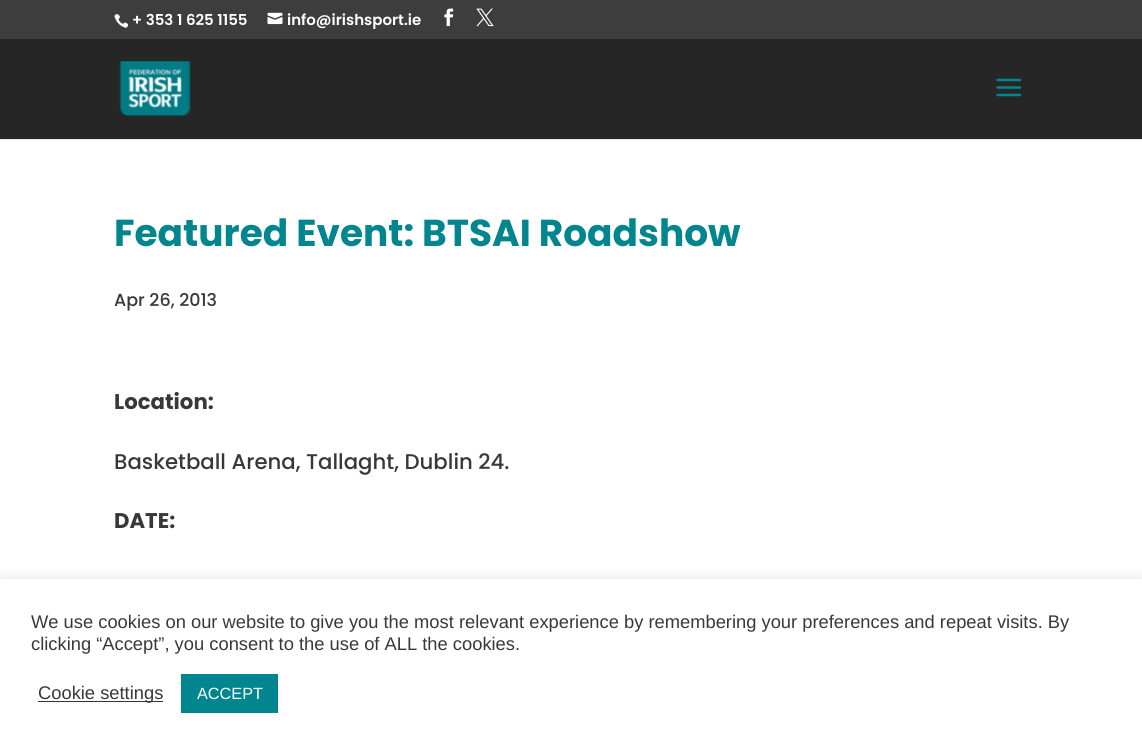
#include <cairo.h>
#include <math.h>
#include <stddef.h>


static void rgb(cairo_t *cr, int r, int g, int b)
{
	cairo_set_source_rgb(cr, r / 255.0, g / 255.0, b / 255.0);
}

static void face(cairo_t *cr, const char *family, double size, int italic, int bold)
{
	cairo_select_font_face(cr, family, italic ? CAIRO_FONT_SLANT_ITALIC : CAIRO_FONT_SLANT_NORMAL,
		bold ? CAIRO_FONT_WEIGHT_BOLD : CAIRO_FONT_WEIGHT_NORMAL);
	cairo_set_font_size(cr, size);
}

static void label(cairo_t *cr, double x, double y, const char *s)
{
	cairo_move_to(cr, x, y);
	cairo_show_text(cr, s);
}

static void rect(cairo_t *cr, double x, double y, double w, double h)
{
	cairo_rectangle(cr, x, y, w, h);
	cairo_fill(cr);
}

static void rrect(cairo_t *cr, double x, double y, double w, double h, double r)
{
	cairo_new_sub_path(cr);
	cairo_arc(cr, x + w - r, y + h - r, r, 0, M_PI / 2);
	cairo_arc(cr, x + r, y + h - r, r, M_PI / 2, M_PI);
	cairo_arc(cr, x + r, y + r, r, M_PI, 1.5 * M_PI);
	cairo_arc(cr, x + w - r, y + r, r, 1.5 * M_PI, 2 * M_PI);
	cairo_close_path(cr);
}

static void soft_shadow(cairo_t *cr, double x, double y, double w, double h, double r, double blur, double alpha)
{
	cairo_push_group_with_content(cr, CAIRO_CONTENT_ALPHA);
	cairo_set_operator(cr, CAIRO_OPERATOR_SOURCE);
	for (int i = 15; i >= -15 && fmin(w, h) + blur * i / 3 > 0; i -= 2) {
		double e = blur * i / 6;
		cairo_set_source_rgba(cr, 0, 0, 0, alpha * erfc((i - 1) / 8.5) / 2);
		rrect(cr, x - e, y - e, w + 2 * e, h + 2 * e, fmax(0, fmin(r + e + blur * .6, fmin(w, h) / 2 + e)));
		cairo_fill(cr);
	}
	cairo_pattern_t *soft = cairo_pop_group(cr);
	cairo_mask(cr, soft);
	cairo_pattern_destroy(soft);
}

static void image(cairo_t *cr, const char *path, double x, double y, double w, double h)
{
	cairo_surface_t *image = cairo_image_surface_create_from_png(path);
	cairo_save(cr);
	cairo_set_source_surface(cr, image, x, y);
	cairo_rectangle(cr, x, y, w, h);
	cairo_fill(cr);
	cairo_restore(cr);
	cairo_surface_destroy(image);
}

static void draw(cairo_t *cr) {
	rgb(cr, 255, 255, 255);
	cairo_paint(cr);
	rgb(cr, 61, 61, 61);
	rect(cr, 0, 0, 1142, 39);
	image(cr, "image0.png", 114, 14, 15, 14);
	face(cr, "Poppins SemiBold", 15, 0, 0);
	rgb(cr, 255, 255, 255);
	label(cr, 132, 25, "+ 353 1 625 1155");
	image(cr, "image1.png", 267, 12, 16, 13);
	label(cr, 287, 25, "info@irishsport.ie");
	image(cr, "image2.png", 444, 8, 10, 19);
	image(cr, "image3.png", 476, 8, 18, 19);
	rgb(cr, 230, 230, 230);
	cairo_new_path(cr);
	cairo_move_to(cr, 0, 139);
	cairo_line_to(cr, 0, 140);
	cairo_line_to(cr, 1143, 140);
	cairo_line_to(cr, 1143, 40);
	cairo_line_to(cr, 1142, 40);
	cairo_line_to(cr, 1142, 139);
	cairo_close_path(cr);
	cairo_fill(cr);
	rgb(cr, 38, 38, 38);
	rect(cr, 0, 39, 1142, 100);
	image(cr, "image4.png", 119, 61, 72, 56);
	image(cr, "image5.png", 996, 78, 26, 19);
	face(cr, "Poppins", 37.5, 0, 1);
	rgb(cr, 1, 133, 142);
	label(cr, 114, 246, "Featured Event: BTSAI Roadshow");
	face(cr, "Poppins Medium", 17.5, 0, 0);
	rgb(cr, 56, 56, 56);
	label(cr, 114, 306, "Apr 26, 2013");
	face(cr, "Poppins", 21.25, 0, 1);
	label(cr, 114, 409, "Location:");
	face(cr, "Poppins Medium", 21.25, 0, 0);
	label(cr, 114, 469, "Basketball Arena, Tallaght, Dublin 24.");
	face(cr, "Poppins", 21.25, 0, 1);
	label(cr, 114, 528, "DATE:");
	rgb(cr, 172, 171, 171);
	soft_shadow(cr, 0, 578, 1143, 171, 0, 6, 0.3);
	rgb(cr, 255, 255, 255);
	rect(cr, 0, 579, 1142, 171);
	face(cr, "Liberation Sans", 18.33, 0, 0);
	rgb(cr, 56, 56, 56);
	label(cr, 31, 628, "We use cookies on our website to give you the most relevant experience by remembering your preferences and repeat visits. By");
	label(cr, 31, 650, "clicking “Accept”, you consent to the use of ALL the cookies.");
	rgb(cr, 51, 51, 51);
	rect(cr, 38, 701, 125, 1);
	rgb(cr, 56, 56, 56);
	label(cr, 38, 699, "Cookie settings");
	rgb(cr, 1, 133, 142);
	rect(cr, 181, 674, 97, 39);
	face(cr, "Liberation Sans", 16.25, 0, 0);
	rgb(cr, 255, 255, 255);
	label(cr, 197, 699, "ACCEPT");
}

int main(void) {
	cairo_surface_t *surface = cairo_image_surface_create(CAIRO_FORMAT_RGB24, 1142, 750);
	cairo_t *cr = cairo_create(surface);
	cairo_font_options_t *options = cairo_font_options_create();
	cairo_font_options_set_hint_metrics(options, CAIRO_HINT_METRICS_OFF);
	cairo_font_options_set_hint_style(options, CAIRO_HINT_STYLE_NONE);
	cairo_set_font_options(cr, options);
	cairo_set_miter_limit(cr, 4);
	draw(cr);
	cairo_surface_write_to_png(surface, "render.png");
	cairo_font_options_destroy(options);
	cairo_destroy(cr);
	cairo_surface_destroy(surface);
	return 0;
}
